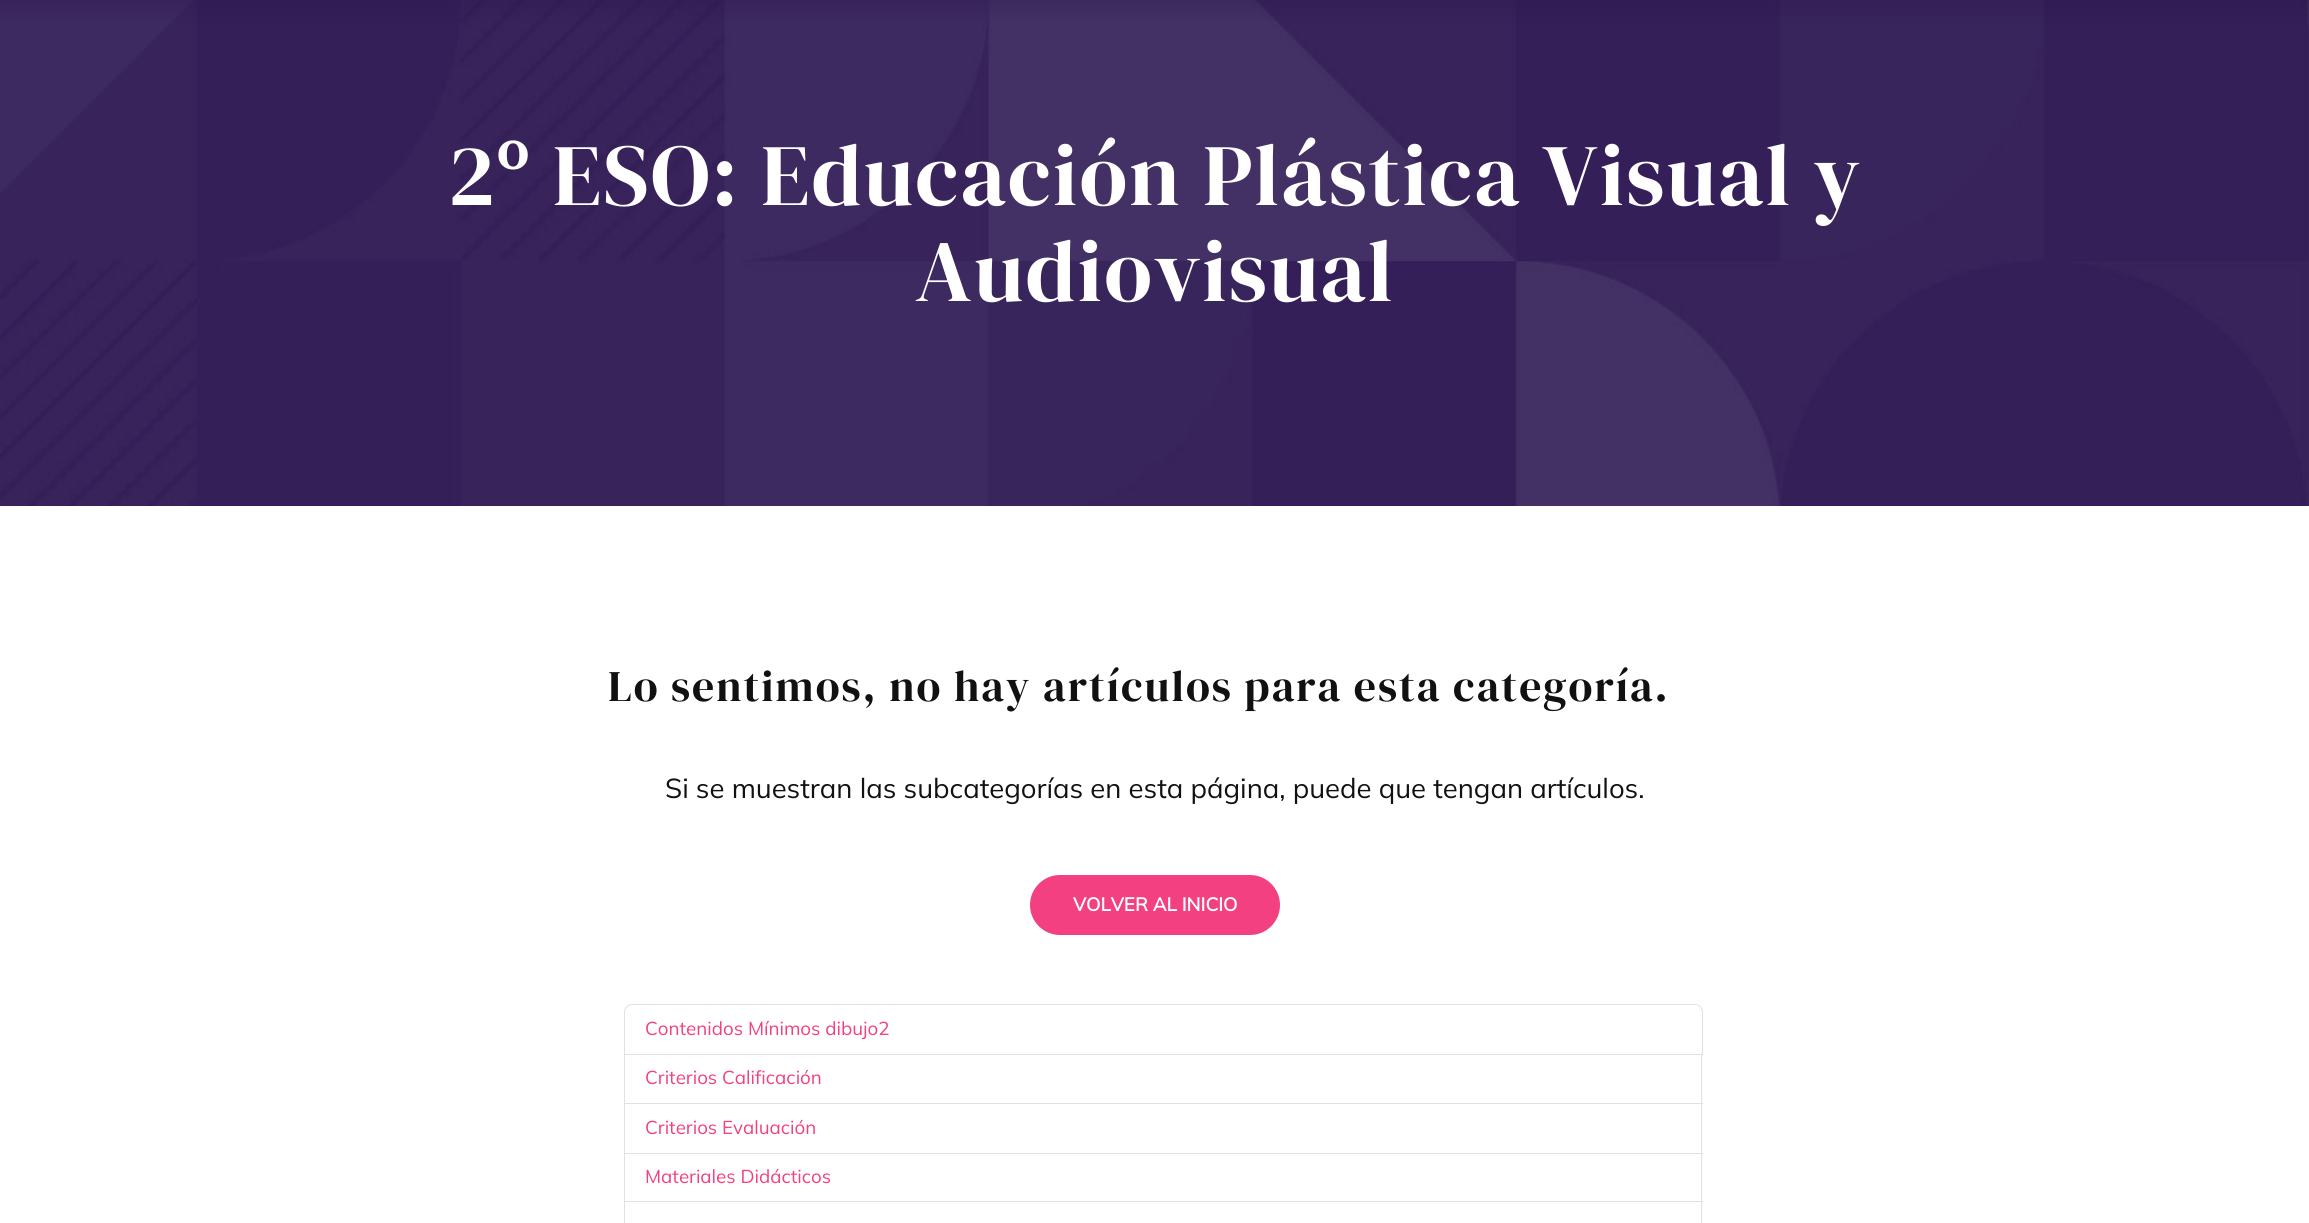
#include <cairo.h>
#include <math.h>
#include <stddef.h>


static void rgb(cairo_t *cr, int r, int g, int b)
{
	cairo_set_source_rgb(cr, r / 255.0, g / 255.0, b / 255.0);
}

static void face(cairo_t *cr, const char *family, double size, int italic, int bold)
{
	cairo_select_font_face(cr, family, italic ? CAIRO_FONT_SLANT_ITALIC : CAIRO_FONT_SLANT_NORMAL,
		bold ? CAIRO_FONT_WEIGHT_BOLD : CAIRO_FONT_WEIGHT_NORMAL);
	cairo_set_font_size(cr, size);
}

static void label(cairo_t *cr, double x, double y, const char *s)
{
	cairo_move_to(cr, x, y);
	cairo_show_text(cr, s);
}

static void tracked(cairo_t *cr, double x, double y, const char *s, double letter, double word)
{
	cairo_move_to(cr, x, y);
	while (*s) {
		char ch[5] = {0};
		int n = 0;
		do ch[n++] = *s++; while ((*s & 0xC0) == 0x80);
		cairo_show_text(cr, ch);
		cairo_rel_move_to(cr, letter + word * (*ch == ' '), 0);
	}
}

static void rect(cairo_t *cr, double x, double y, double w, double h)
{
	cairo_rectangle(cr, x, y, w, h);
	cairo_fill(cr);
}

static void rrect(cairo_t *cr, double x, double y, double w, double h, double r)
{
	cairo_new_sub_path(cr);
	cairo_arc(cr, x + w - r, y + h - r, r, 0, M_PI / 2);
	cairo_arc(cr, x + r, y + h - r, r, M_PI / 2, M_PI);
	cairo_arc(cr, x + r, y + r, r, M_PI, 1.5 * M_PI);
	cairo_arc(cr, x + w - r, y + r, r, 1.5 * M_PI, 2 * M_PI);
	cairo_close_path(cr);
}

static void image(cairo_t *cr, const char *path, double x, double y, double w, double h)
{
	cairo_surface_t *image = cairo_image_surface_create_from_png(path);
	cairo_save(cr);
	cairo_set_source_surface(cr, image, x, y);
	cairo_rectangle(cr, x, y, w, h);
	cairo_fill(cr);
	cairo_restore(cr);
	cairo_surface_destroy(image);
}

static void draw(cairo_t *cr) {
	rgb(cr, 255, 255, 255);
	cairo_paint(cr);
	image(cr, "image0.png", 0, 0, 2309, 506);
	face(cr, "DM Serif Display", 87.5, 0, 0);
	rgb(cr, 255, 255, 255);
	tracked(cr, 448, 205, "2º ESO: Educación Plástica Visual y", 2, 0);
	tracked(cr, 915, 301, "Audiovisual", 2, 0);
	face(cr, "DM Serif Display", 43.75, 0, 0);
	rgb(cr, 17, 17, 17);
	tracked(cr, 608, 701, "Lo sentimos, no hay artículos para esta categoría.", 2, 0);
	face(cr, "Mulish ExtraLight", 27.5, 0, 0);
	label(cr, 665, 798, "Si se muestran las subcategorías en esta página, puede que tengan artículos.");
	rgb(cr, 242, 64, 128);
	rrect(cr, 1030, 875, 250, 60, 30);
	cairo_fill(cr);
	face(cr, "Mulish", 18.75, 0, 1);
	rgb(cr, 255, 255, 255);
	label(cr, 1073, 911, "VOLVER AL INICIO");
	cairo_new_path(cr);
	cairo_move_to(cr, 632, 1004.5);
	cairo_line_to(cr, 1695, 1004.5);
	cairo_curve_to(cr, 1699, 1004.5, 1702.5, 1008, 1702.5, 1012);
	cairo_line_to(cr, 1702.5, 1054.5);
	cairo_line_to(cr, 624.5, 1054.5);
	cairo_line_to(cr, 624.5, 1012);
	cairo_curve_to(cr, 624.5, 1008, 628, 1004.5, 632, 1004.5);
	cairo_close_path(cr);
	rgb(cr, 222, 226, 230);
	cairo_set_line_width(cr, 1);
	cairo_stroke(cr);
	face(cr, "Mulish ExtraLight", 18.75, 0, 0);
	rgb(cr, 242, 64, 128);
	label(cr, 645, 1035, "Contenidos Mínimos dibujo2");
	rgb(cr, 222, 226, 230);
	rect(cr, 1701, 1055, 1, 148);
	rect(cr, 624, 1103, 1079, 1);
	rect(cr, 624, 1055, 1, 49);
	rgb(cr, 242, 64, 128);
	label(cr, 645, 1084, "Criterios Calificación");
	rgb(cr, 222, 226, 230);
	rect(cr, 624, 1153, 1079, 1);
	rect(cr, 624, 1104, 1, 50);
	rgb(cr, 242, 64, 128);
	label(cr, 645, 1134, "Criterios Evaluación");
	rgb(cr, 222, 226, 230);
	rect(cr, 624, 1201, 1079, 1);
	rect(cr, 624, 1154, 1, 49);
	rgb(cr, 242, 64, 128);
	label(cr, 645, 1183, "Materiales Didácticos");
	rgb(cr, 222, 226, 230);
	cairo_set_fill_rule(cr, CAIRO_FILL_RULE_EVEN_ODD);
	cairo_new_path(cr);
	cairo_move_to(cr, 624, 1202);
	cairo_line_to(cr, 1702, 1202);
	cairo_line_to(cr, 1702, 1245);
	cairo_curve_to(cr, 1702, 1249, 1699, 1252, 1695, 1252);
	cairo_line_to(cr, 631, 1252);
	cairo_curve_to(cr, 627, 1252, 624, 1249, 624, 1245);
	cairo_close_path(cr);
	cairo_move_to(cr, 625, 1202);
	cairo_line_to(cr, 1701, 1202);
	cairo_line_to(cr, 1701, 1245);
	cairo_curve_to(cr, 1701, 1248, 1698, 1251, 1695, 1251);
	cairo_line_to(cr, 631, 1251);
	cairo_curve_to(cr, 628, 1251, 625, 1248, 625, 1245);
	cairo_close_path(cr);
	cairo_fill(cr);
}

int main(void) {
	cairo_surface_t *surface = cairo_image_surface_create(CAIRO_FORMAT_RGB24, 2309, 1223);
	cairo_t *cr = cairo_create(surface);
	cairo_font_options_t *options = cairo_font_options_create();
	cairo_font_options_set_hint_metrics(options, CAIRO_HINT_METRICS_OFF);
	cairo_font_options_set_hint_style(options, CAIRO_HINT_STYLE_NONE);
	cairo_set_font_options(cr, options);
	cairo_set_miter_limit(cr, 4);
	draw(cr);
	cairo_surface_write_to_png(surface, "render.png");
	cairo_font_options_destroy(options);
	cairo_destroy(cr);
	cairo_surface_destroy(surface);
	return 0;
}
